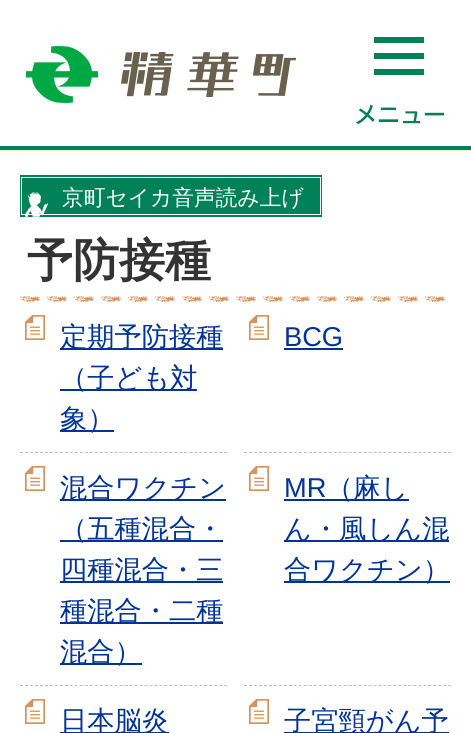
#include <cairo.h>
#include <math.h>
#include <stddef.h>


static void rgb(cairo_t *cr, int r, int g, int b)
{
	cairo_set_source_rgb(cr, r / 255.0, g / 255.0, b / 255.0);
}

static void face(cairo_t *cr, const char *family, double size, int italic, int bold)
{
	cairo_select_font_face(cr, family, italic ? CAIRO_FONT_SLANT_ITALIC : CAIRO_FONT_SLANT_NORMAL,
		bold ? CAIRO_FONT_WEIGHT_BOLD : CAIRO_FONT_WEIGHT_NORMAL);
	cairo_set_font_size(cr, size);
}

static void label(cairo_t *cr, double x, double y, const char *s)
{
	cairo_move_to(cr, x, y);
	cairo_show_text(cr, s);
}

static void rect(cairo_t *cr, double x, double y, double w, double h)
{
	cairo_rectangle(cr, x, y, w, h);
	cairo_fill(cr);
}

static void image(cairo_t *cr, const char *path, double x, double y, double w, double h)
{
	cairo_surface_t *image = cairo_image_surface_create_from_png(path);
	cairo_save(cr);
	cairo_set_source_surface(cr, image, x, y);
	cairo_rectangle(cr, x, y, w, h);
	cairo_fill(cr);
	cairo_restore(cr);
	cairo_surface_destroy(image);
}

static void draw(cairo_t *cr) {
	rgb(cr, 255, 255, 255);
	cairo_paint(cr);
	rgb(cr, 246, 237, 207);
	rect(cr, 0, 150, 471, 1);
	rgb(cr, 0, 129, 88);
	rect(cr, 0, 146, 471, 4);
	image(cr, "image0.png", 26, 46, 270, 57);
	image(cr, "image1.png", 356, 37, 88, 88);
	rect(cr, 20, 175, 302, 42);
	image(cr, "image2.png", 25, 192, 23, 25);
	cairo_rectangle(cr, 21.5, 177.5, 299, 37);
	rgb(cr, 255, 255, 255);
	cairo_set_line_width(cr, 1);
	cairo_stroke(cr);
	face(cr, "WenQuanYi Zen Hei Medium", 21.75, 0, 0);
	label(cr, 62, 205, "京町セイカ音声読み上げ");
	image(cr, "image3.png", 20, 296, 425, 6);
	face(cr, "WenQuanYi Zen Hei", 46, 0, 1);
	rgb(cr, 51, 51, 51);
	label(cr, 27, 276, "予防接種");
	image(cr, "image4.png", 25, 315, 20, 25);
	cairo_new_path(cr);
	cairo_move_to(cr, 20, 452.5);
	cairo_line_to(cr, 227, 452.5);
	rgb(cr, 191, 191, 191);
	cairo_set_dash(cr, (double[]){3, 1.98}, 2, 0);
	cairo_stroke(cr);
	rgb(cr, 0, 51, 153);
	rect(cr, 60, 348, 163, 2);
	face(cr, "WenQuanYi Zen Hei Medium", 27.25, 0, 0);
	label(cr, 60, 346, "定期予防接種");
	rect(cr, 60, 389, 137, 2);
	label(cr, 60, 387, "（子ども対");
	rect(cr, 60, 430, 54, 2);
	label(cr, 60, 428, "象）");
	image(cr, "image4.png", 249, 315, 20, 25);
	cairo_new_path(cr);
	cairo_move_to(cr, 244, 452.5);
	cairo_line_to(cr, 451, 452.5);
	rgb(cr, 191, 191, 191);
	cairo_stroke(cr);
	face(cr, "Liberation Sans", 27.25, 0, 0);
	rgb(cr, 0, 51, 153);
	label(cr, 284, 346, "BCG");
	rect(cr, 284, 348, 59, 2);
	image(cr, "image4.png", 25, 466, 20, 25);
	cairo_new_path(cr);
	cairo_move_to(cr, 20, 685.5);
	cairo_line_to(cr, 227, 685.5);
	rgb(cr, 191, 191, 191);
	cairo_stroke(cr);
	rgb(cr, 0, 51, 153);
	rect(cr, 60, 499, 166, 2);
	face(cr, "WenQuanYi Zen Hei Medium", 27.25, 0, 0);
	label(cr, 60, 497, "混合ワクチン");
	rect(cr, 60, 540, 163, 2);
	label(cr, 60, 538, "（五種混合・");
	rect(cr, 60, 581, 163, 2);
	label(cr, 60, 579, "四種混合・三");
	rect(cr, 60, 622, 163, 2);
	label(cr, 60, 620, "種混合・二種");
	rect(cr, 60, 663, 82, 2);
	label(cr, 60, 661, "混合）");
	image(cr, "image4.png", 249, 466, 20, 25);
	cairo_new_path(cr);
	cairo_move_to(cr, 244, 685.5);
	cairo_line_to(cr, 451, 685.5);
	rgb(cr, 191, 191, 191);
	cairo_stroke(cr);
	face(cr, "Liberation Sans", 27.25, 0, 0);
	rgb(cr, 0, 51, 153);
	label(cr, 284, 497, "MR");
	rect(cr, 284, 499, 125, 2);
	face(cr, "WenQuanYi Zen Hei Medium", 27.25, 0, 0);
	label(cr, 326, 497, "（麻し");
	rect(cr, 284, 540, 165, 2);
	label(cr, 284, 538, "ん・風しん混");
	rect(cr, 284, 581, 166, 2);
	label(cr, 284, 579, "合ワクチン）");
	image(cr, "image4.png", 25, 699, 20, 25);
	rect(cr, 60, 732, 109, 1);
	label(cr, 60, 730, "日本脳炎");
	image(cr, "image4.png", 249, 699, 20, 25);
	rect(cr, 284, 732, 165, 1);
	label(cr, 284, 730, "子宮頸がん予");
}

int main(void) {
	cairo_surface_t *surface = cairo_image_surface_create(CAIRO_FORMAT_RGB24, 471, 733);
	cairo_t *cr = cairo_create(surface);
	cairo_font_options_t *options = cairo_font_options_create();
	cairo_font_options_set_hint_metrics(options, CAIRO_HINT_METRICS_OFF);
	cairo_font_options_set_hint_style(options, CAIRO_HINT_STYLE_NONE);
	cairo_set_font_options(cr, options);
	cairo_set_miter_limit(cr, 4);
	draw(cr);
	cairo_surface_write_to_png(surface, "render.png");
	cairo_font_options_destroy(options);
	cairo_destroy(cr);
	cairo_surface_destroy(surface);
	return 0;
}
